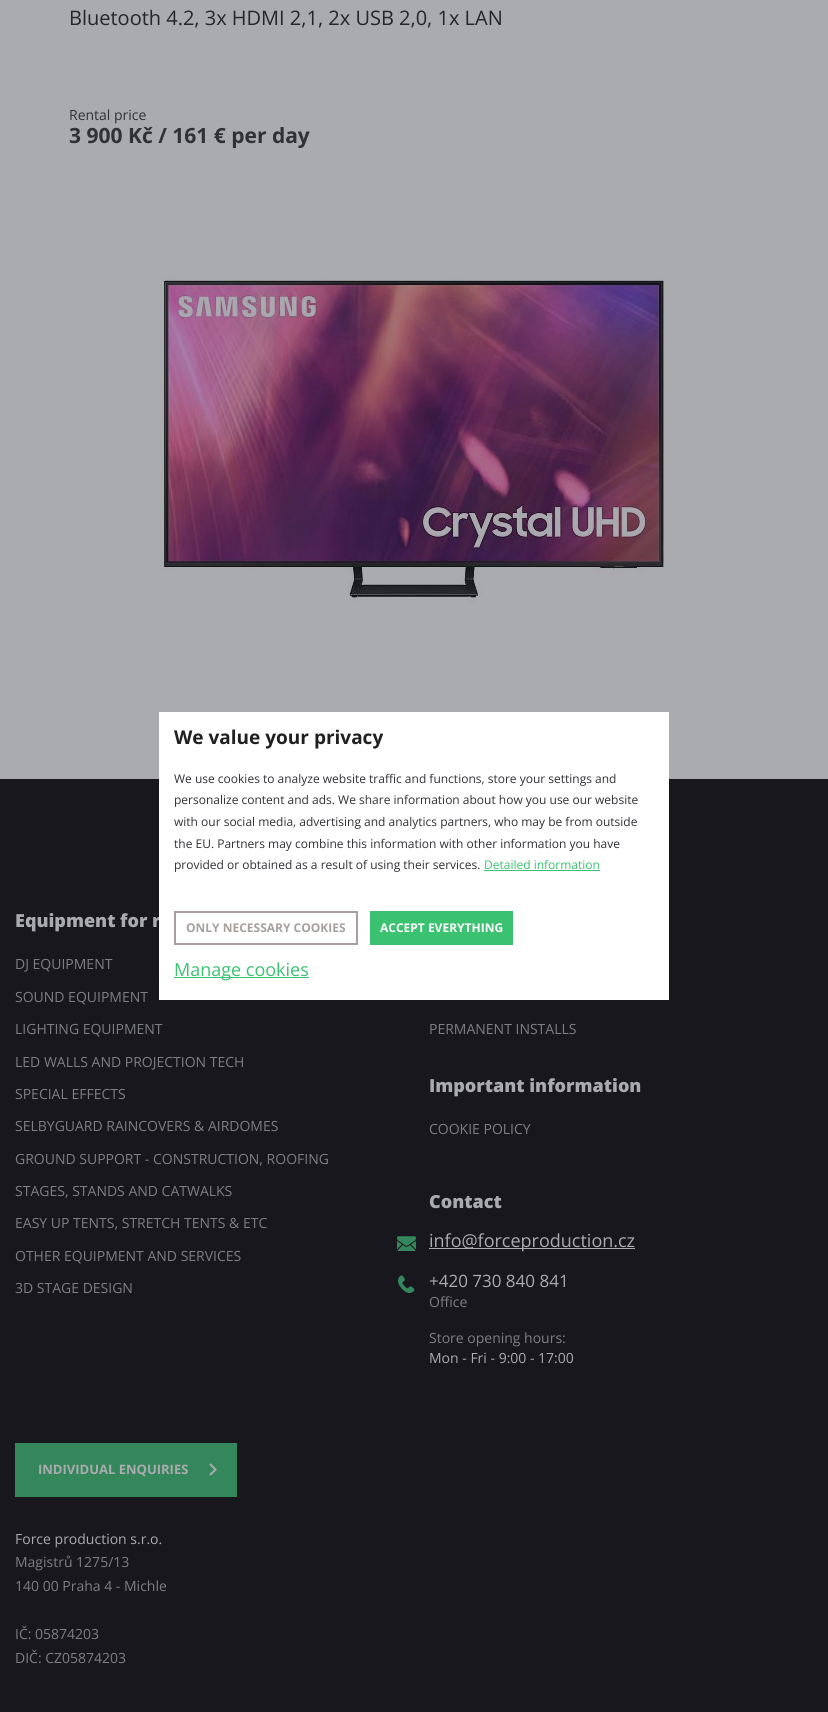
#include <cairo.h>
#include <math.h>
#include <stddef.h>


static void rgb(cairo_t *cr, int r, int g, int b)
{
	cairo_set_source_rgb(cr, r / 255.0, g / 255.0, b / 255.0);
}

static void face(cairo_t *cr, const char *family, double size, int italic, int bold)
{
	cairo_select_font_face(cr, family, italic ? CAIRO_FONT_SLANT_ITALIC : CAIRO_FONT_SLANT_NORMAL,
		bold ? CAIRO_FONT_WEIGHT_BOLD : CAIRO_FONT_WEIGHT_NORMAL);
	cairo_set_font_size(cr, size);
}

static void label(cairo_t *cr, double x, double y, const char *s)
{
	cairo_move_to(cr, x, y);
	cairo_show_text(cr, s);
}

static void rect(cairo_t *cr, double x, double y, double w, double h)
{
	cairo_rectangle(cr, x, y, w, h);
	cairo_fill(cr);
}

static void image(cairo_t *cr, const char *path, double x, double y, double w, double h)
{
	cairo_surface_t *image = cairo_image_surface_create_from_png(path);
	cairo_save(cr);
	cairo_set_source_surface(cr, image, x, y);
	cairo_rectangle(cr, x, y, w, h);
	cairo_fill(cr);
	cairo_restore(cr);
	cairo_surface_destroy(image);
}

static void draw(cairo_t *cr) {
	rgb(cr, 170, 171, 175);
	cairo_paint(cr);
	face(cr, "Open Sans", 20, 0, 0);
	rgb(cr, 36, 38, 42);
	label(cr, 69, 25, "Bluetooth 4.2, 3x HDMI 2,1, 2x USB 2,0, 1x LAN");
	face(cr, "Open Sans", 14, 0, 0);
	rgb(cr, 48, 49, 53);
	label(cr, 69, 120, "Rental price");
	face(cr, "Open Sans", 21, 0, 1);
	label(cr, 69, 143, "3 900 Kč / 161 € per day");
	image(cr, "image0.png", 164, 277, 500, 328);
	rgb(cr, 24, 23, 30);
	rect(cr, 0, 779, 828, 933);
	face(cr, "Open Sans ExtraBold", 18, 0, 0);
	rgb(cr, 170, 171, 175);
	label(cr, 15, 927, "Equipment for r");
	rgb(cr, 255, 255, 255);
	rect(cr, 159, 712, 510, 288);
	face(cr, "Open Sans", 19, 0, 1);
	rgb(cr, 32, 32, 32);
	label(cr, 174, 744, "We value your privacy");
	face(cr, "Open Sans", 12, 0, 0);
	rgb(cr, 48, 49, 53);
	label(cr, 174, 783, "We use cookies to analyze website traffic and functions, store your settings and");
	label(cr, 174, 804, "personalize content and ads. We share information about how you use our website");
	label(cr, 174, 826, "with our social media, advertising and analytics partners, who may be from outside");
	label(cr, 174, 848, "the EU. Partners may combine this information with other information you have");
	label(cr, 174, 869, "provided or obtained as a result of using their services.");
	rgb(cr, 58, 194, 112);
	label(cr, 484, 869, "Detailed information");
	rect(cr, 484, 870, 116, 1);
	cairo_rectangle(cr, 175, 912, 182, 32);
	rgb(cr, 169, 159, 158);
	cairo_stroke(cr);
	face(cr, "Open Sans", 12, 0, 1);
	label(cr, 186, 932, "ONLY NECESSARY COOKIES");
	rgb(cr, 58, 194, 112);
	rect(cr, 370, 911, 143, 34);
	rgb(cr, 255, 255, 255);
	label(cr, 380, 932, "ACCEPT EVERYTHING");
	rgb(cr, 58, 194, 112);
	rect(cr, 174, 977, 135, 1);
	face(cr, "Open Sans", 18, 0, 0);
	label(cr, 174, 976, "Manage cookies");
	face(cr, "Open Sans", 14, 0, 0);
	rgb(cr, 125, 126, 130);
	label(cr, 15, 969, "DJ EQUIPMENT");
	label(cr, 15, 1002, "SOUND EQUIPMENT");
	label(cr, 15, 1034, "LIGHTING EQUIPMENT");
	label(cr, 15, 1067, "LED WALLS AND PROJECTION TECH");
	label(cr, 15, 1099, "SPECIAL EFFECTS");
	label(cr, 15, 1131, "SELBYGUARD RAINCOVERS & AIRDOMES");
	label(cr, 15, 1164, "GROUND SUPPORT - CONSTRUCTION, ROOFING");
	label(cr, 15, 1196, "STAGES, STANDS AND CATWALKS");
	label(cr, 15, 1228, "EASY UP TENTS, STRETCH TENTS & ETC");
	label(cr, 15, 1261, "OTHER EQUIPMENT AND SERVICES");
	label(cr, 15, 1293, "3D STAGE DESIGN");
	label(cr, 429, 1034, "PERMANENT INSTALLS");
	face(cr, "Open Sans ExtraBold", 18, 0, 0);
	rgb(cr, 170, 171, 175);
	label(cr, 429, 1092, "Important information");
	face(cr, "Open Sans", 14, 0, 0);
	rgb(cr, 125, 126, 130);
	label(cr, 429, 1134, "COOKIE POLICY");
	face(cr, "Open Sans ExtraBold", 18, 0, 0);
	rgb(cr, 170, 171, 175);
	label(cr, 429, 1208, "Contact");
	image(cr, "image1.png", 397, 1236, 19, 15);
	rect(cr, 429, 1248, 206, 1);
	face(cr, "Open Sans", 18, 0, 0);
	label(cr, 429, 1247, "info@forceproduction.cz");
	image(cr, "image2.png", 398, 1275, 17, 18);
	face(cr, "Open Sans", 17, 0, 0);
	label(cr, 429, 1287, "+420 730 840 841");
	face(cr, "Open Sans", 14, 0, 0);
	rgb(cr, 125, 126, 130);
	label(cr, 429, 1307, "Office");
	label(cr, 429, 1343, "Store opening hours:");
	rgb(cr, 170, 171, 175);
	label(cr, 429, 1363, "Mon - Fri - 9:00 - 17:00");
	rgb(cr, 52, 135, 90);
	rect(cr, 15, 1443, 222, 54);
	face(cr, "Open Sans", 13, 0, 1);
	rgb(cr, 170, 171, 175);
	label(cr, 38, 1474, "INDIVIDUAL ENQUIRIES");
	image(cr, "image3.png", 209, 1463, 8, 13);
	face(cr, "Open Sans", 14, 0, 0);
	label(cr, 15, 1544, "Force production s.r.o.");
	rgb(cr, 125, 126, 130);
	label(cr, 15, 1567, "Magistrů 1275/13");
	label(cr, 15, 1591, "140 00 Praha 4 - Michle");
	label(cr, 15, 1639, "IČ: 05874203");
	label(cr, 15, 1663, "DIČ: CZ05874203");
}

int main(void) {
	cairo_surface_t *surface = cairo_image_surface_create(CAIRO_FORMAT_RGB24, 828, 1712);
	cairo_t *cr = cairo_create(surface);
	cairo_font_options_t *options = cairo_font_options_create();
	cairo_font_options_set_hint_metrics(options, CAIRO_HINT_METRICS_OFF);
	cairo_font_options_set_hint_style(options, CAIRO_HINT_STYLE_NONE);
	cairo_set_font_options(cr, options);
	cairo_set_miter_limit(cr, 4);
	draw(cr);
	cairo_surface_write_to_png(surface, "render.png");
	cairo_font_options_destroy(options);
	cairo_destroy(cr);
	cairo_surface_destroy(surface);
	return 0;
}
